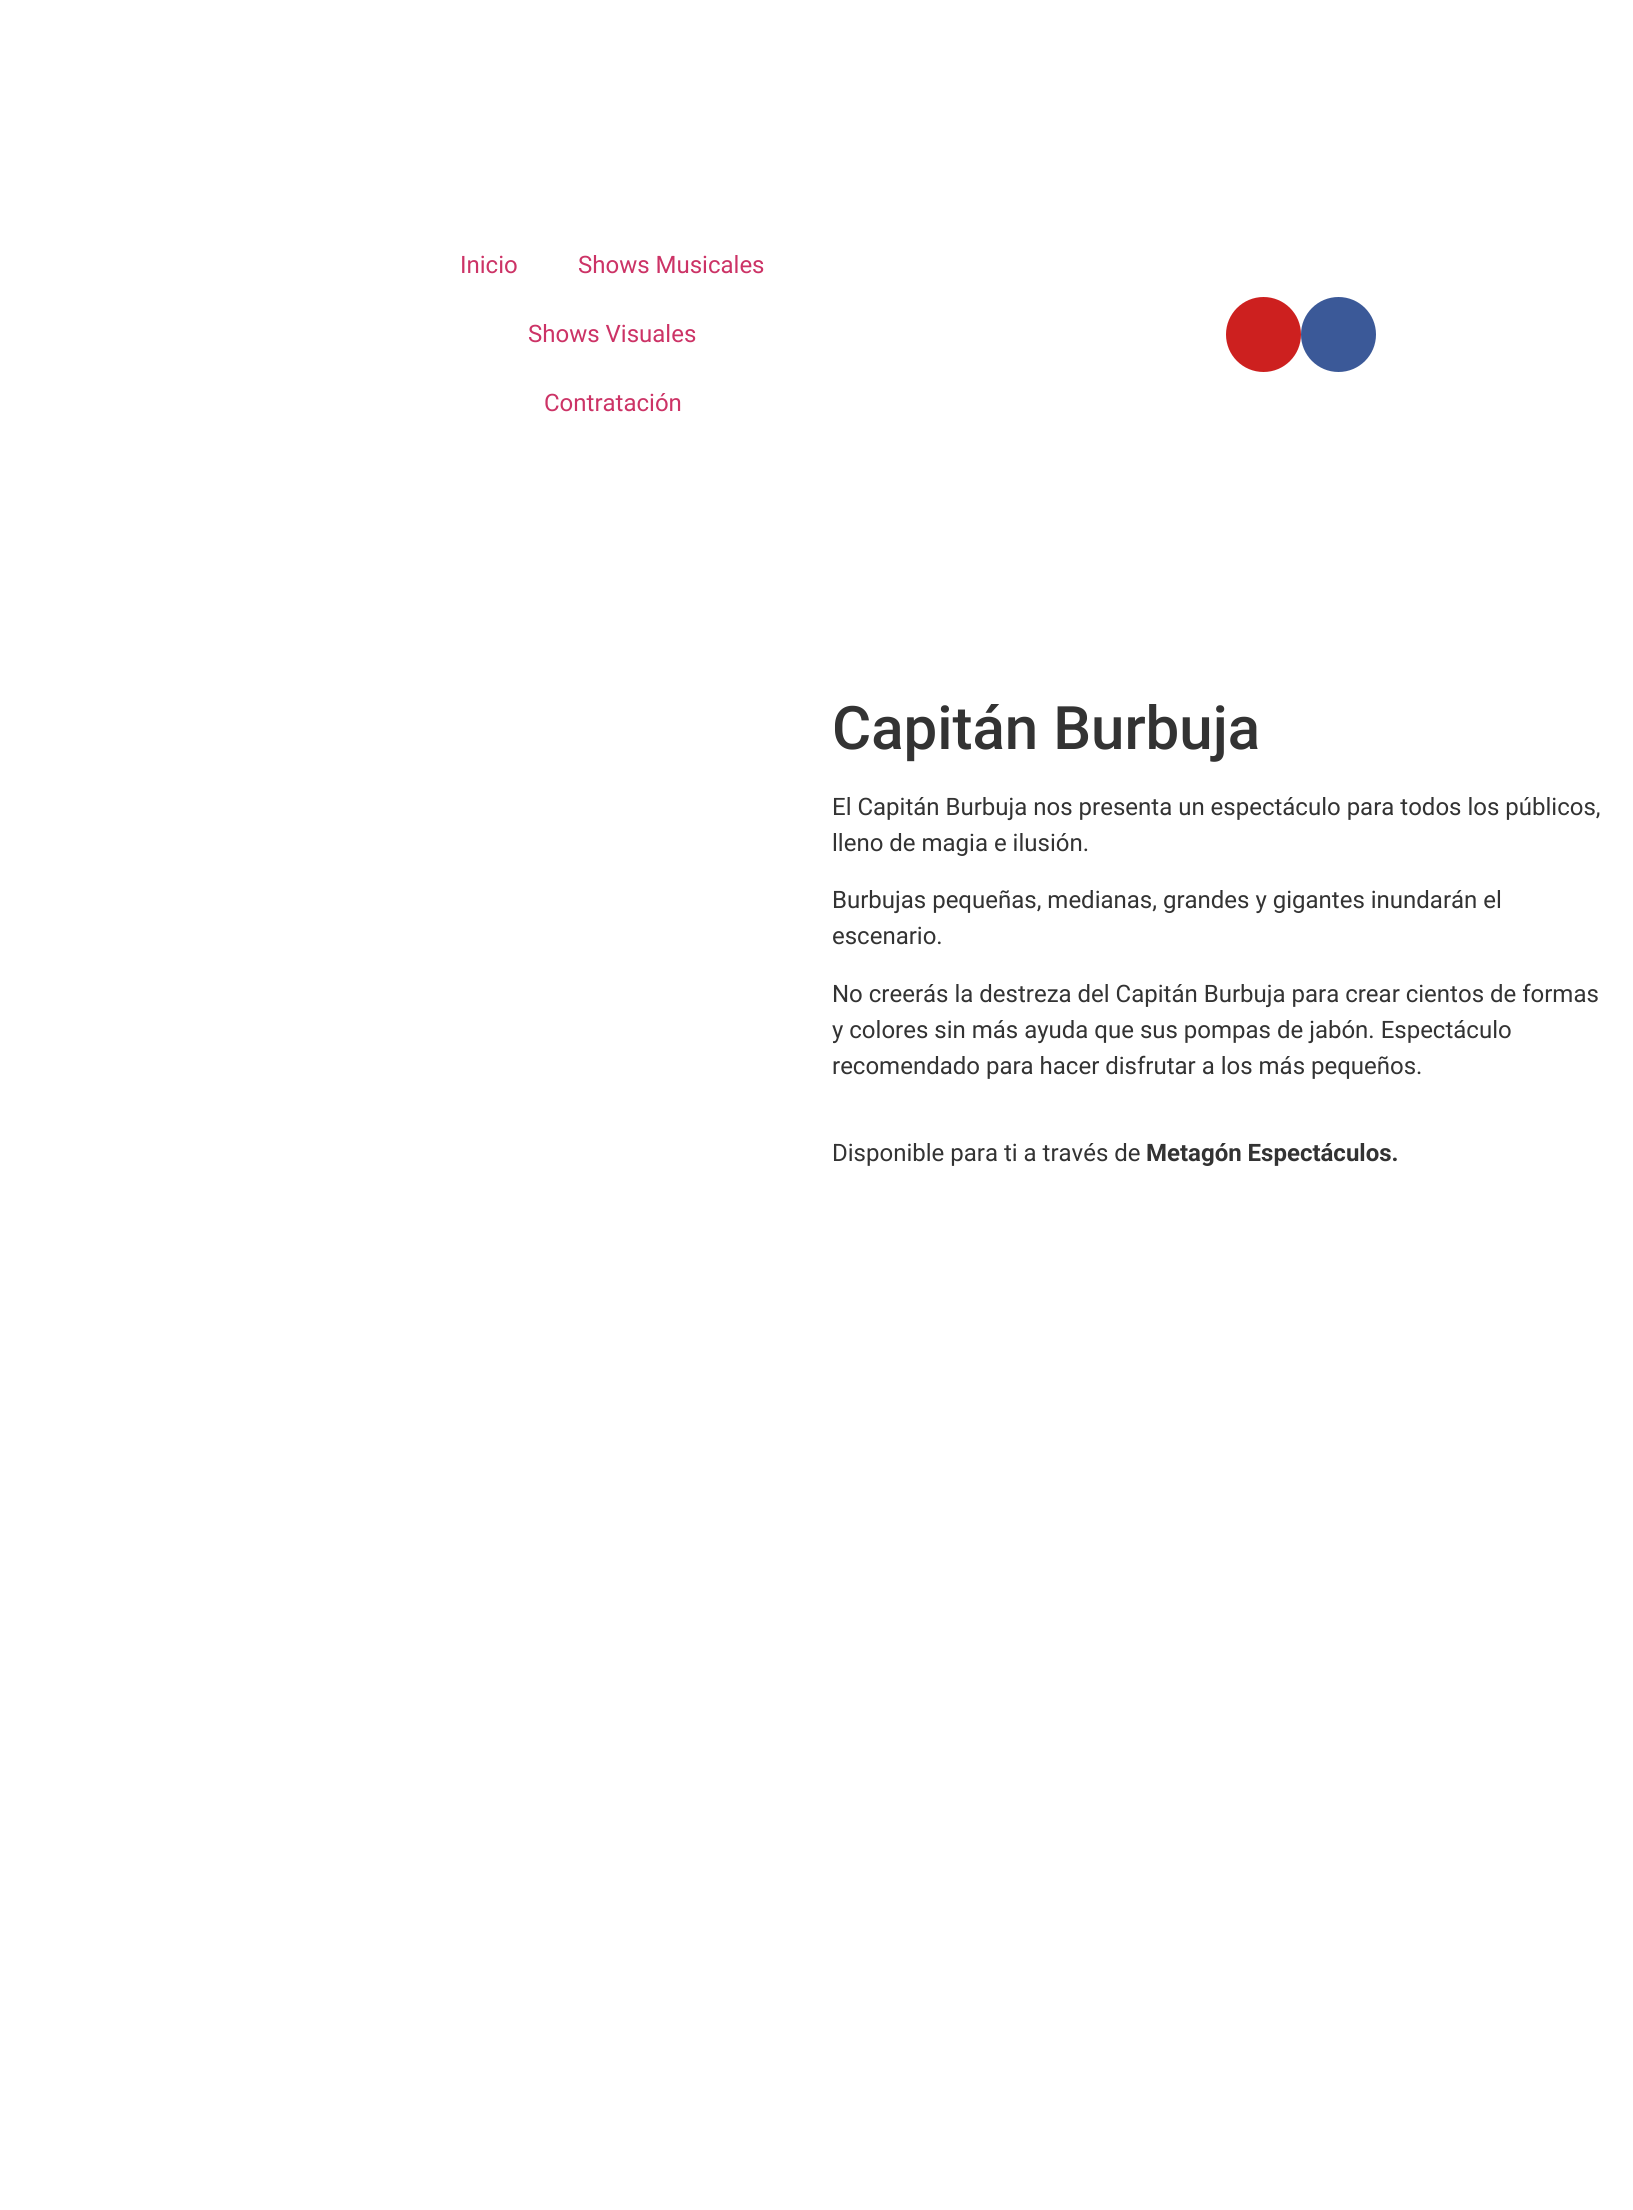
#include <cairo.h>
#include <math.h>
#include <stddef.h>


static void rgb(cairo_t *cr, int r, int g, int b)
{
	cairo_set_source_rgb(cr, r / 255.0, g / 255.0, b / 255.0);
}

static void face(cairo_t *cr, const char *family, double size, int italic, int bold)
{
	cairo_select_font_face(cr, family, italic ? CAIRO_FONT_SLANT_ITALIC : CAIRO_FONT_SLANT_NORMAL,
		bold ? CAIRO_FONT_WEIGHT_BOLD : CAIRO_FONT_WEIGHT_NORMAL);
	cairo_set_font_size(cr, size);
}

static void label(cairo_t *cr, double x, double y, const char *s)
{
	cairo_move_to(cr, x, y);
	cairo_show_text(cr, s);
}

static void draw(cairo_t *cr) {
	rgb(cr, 255, 255, 255);
	cairo_paint(cr);
	face(cr, "Roboto", 24, 0, 0);
	rgb(cr, 204, 51, 102);
	label(cr, 460, 273, "Inicio");
	label(cr, 578, 273, "Shows Musicales");
	label(cr, 528, 342, "Shows Visuales");
	label(cr, 544, 411, "Contratación");
	rgb(cr, 205, 32, 31);
	cairo_new_path(cr);
	cairo_arc(cr, 1263.5, 334.5, 37.5, 0, 2 * M_PI);
	cairo_fill(cr);
	rgb(cr, 59, 89, 152);
	cairo_arc(cr, 1338.5, 334.5, 37.5, 0, 2 * M_PI);
	cairo_fill(cr);
	face(cr, "Roboto Medium", 60, 0, 0);
	rgb(cr, 51, 51, 51);
	label(cr, 832, 749, "Capitán Burbuja");
	face(cr, "Roboto", 24, 0, 0);
	label(cr, 832, 815, "El Capitán Burbuja nos presenta un espectáculo para todos los públicos,");
	label(cr, 832, 851, "lleno de magia e ilusión.");
	label(cr, 832, 908, "Burbujas pequeñas, medianas, grandes y gigantes inundarán el");
	label(cr, 832, 944, "escenario.");
	label(cr, 832, 1002, "No creerás la destreza del Capitán Burbuja para crear cientos de formas");
	label(cr, 832, 1038, "y colores sin más ayuda que sus pompas de jabón. Espectáculo");
	label(cr, 832, 1074, "recomendado para hacer disfrutar a los más pequeños.");
	label(cr, 832, 1161, "Disponible para ti a través de");
	face(cr, "Roboto", 24, 0, 1);
	label(cr, 1146, 1161, "Metagón Espectáculos.");
}

int main(void) {
	cairo_surface_t *surface = cairo_image_surface_create(CAIRO_FORMAT_RGB24, 1633, 2210);
	cairo_t *cr = cairo_create(surface);
	cairo_font_options_t *options = cairo_font_options_create();
	cairo_font_options_set_hint_metrics(options, CAIRO_HINT_METRICS_OFF);
	cairo_font_options_set_hint_style(options, CAIRO_HINT_STYLE_NONE);
	cairo_set_font_options(cr, options);
	cairo_set_miter_limit(cr, 4);
	draw(cr);
	cairo_surface_write_to_png(surface, "render.png");
	cairo_font_options_destroy(options);
	cairo_destroy(cr);
	cairo_surface_destroy(surface);
	return 0;
}
